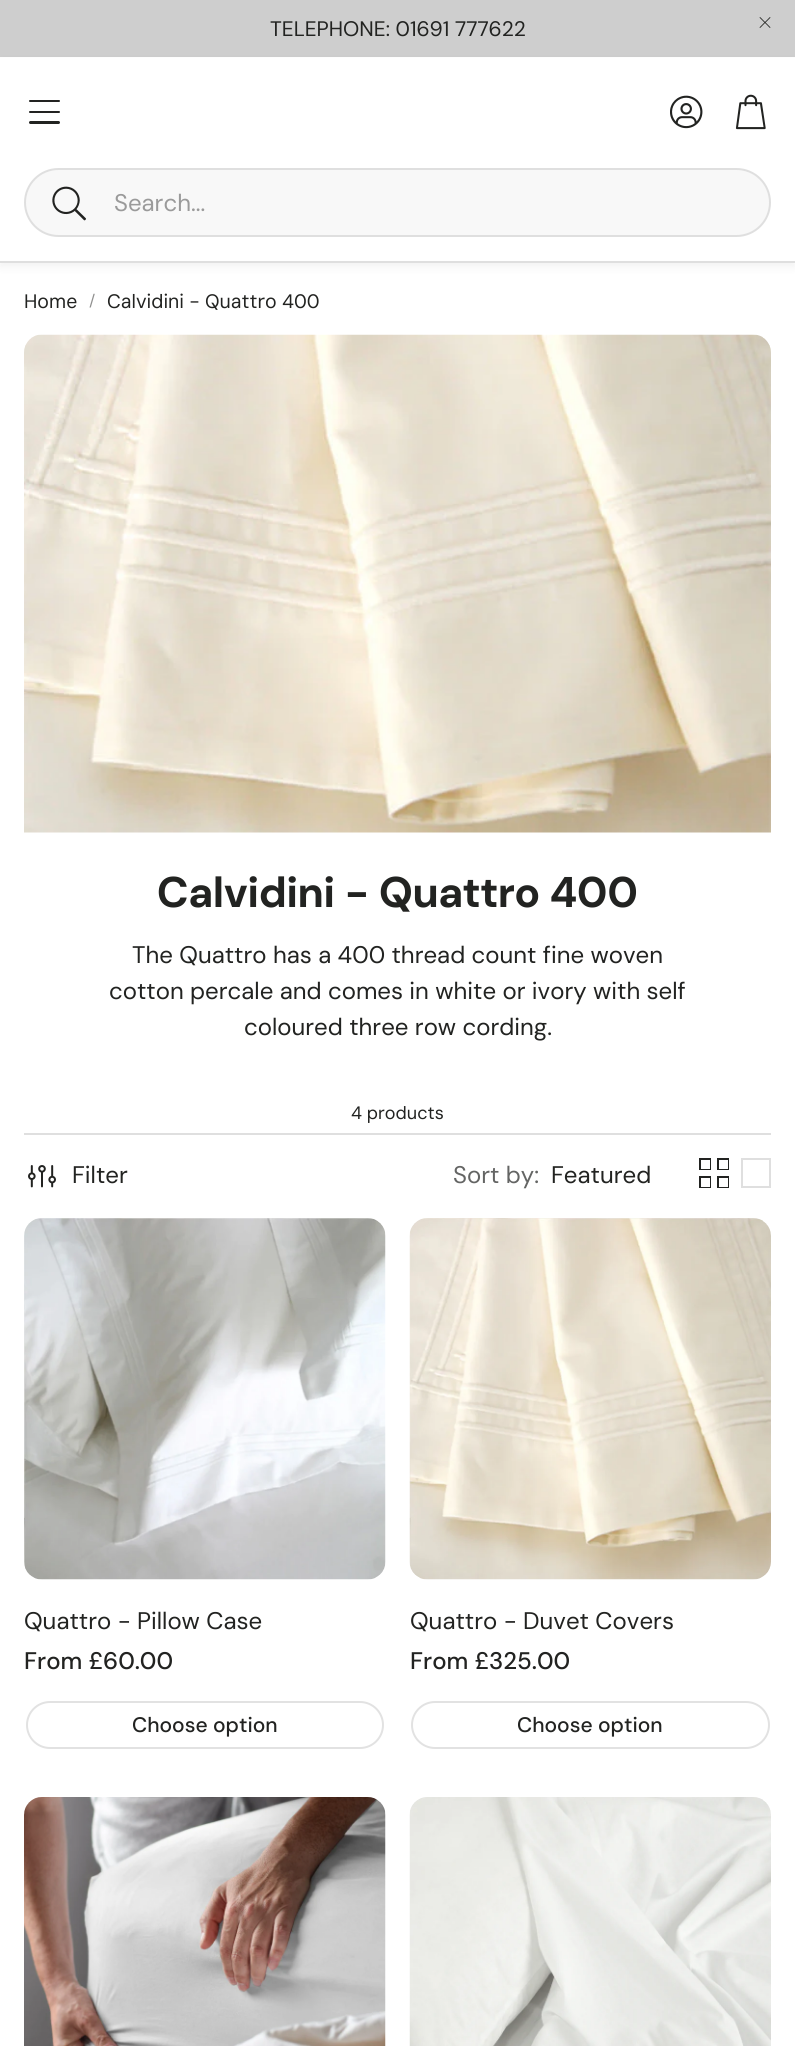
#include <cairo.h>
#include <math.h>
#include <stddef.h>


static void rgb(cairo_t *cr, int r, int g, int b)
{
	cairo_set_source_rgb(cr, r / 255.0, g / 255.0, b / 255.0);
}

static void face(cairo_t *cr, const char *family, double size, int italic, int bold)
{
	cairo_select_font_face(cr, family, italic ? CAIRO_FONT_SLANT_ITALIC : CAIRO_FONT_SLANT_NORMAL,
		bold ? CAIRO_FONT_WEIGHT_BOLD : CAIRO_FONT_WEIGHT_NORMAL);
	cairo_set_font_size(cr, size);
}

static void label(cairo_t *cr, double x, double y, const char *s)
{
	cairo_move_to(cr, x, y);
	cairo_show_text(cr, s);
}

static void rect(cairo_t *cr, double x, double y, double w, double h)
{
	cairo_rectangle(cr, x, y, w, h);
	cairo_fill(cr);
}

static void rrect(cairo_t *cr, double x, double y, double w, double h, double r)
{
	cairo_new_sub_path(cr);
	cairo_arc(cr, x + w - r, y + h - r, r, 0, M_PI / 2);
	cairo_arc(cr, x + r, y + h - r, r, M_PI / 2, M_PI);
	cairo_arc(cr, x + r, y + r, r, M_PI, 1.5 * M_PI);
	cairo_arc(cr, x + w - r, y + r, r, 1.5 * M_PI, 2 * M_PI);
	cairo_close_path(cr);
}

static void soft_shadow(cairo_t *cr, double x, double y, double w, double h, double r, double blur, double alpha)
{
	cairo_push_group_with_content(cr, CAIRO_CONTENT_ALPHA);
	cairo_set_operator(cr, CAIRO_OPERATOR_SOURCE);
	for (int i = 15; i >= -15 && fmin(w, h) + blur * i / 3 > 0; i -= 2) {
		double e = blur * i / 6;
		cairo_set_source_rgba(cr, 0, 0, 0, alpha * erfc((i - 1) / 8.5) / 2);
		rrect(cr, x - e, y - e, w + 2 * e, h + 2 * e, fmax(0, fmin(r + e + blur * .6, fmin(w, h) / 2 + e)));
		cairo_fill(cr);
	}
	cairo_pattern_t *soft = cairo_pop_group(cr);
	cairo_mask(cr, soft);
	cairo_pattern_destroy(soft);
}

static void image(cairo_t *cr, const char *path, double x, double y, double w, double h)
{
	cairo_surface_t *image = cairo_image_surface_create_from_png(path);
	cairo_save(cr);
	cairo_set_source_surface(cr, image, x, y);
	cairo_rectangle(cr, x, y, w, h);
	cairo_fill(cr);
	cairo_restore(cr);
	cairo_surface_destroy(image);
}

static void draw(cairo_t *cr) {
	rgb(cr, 255, 255, 255);
	cairo_paint(cr);
	rgb(cr, 206, 206, 206);
	rect(cr, 0, 0, 795, 57);
	face(cr, "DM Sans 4", 21, 0, 0);
	rgb(cr, 34, 35, 33);
	label(cr, 270, 36, "TELEPHONE: 01691 777622");
	image(cr, "image0.png", 759, 17, 12, 11);
	rgb(cr, 0, 0, 0);
	soft_shadow(cr, 0, 62, 795, 205, 0, 4.5, 0.05);
	rgb(cr, 255, 255, 255);
	rect(cr, 0, 58, 795, 203);
	rgb(cr, 223, 223, 223);
	rect(cr, 0, 261, 795, 2);
	rgb(cr, 34, 35, 33);
	rrect(cr, 29, 100, 31, 2, 1);
	cairo_fill(cr);
	rrect(cr, 29, 111, 31, 2, 1);
	cairo_fill(cr);
	rrect(cr, 29, 121, 31, 3, 1.5);
	cairo_fill(cr);
	image(cr, "image1.png", 670, 95, 33, 34);
	image(cr, "image2.png", 735, 94, 31, 36);
	rgb(cr, 248, 248, 248);
	rrect(cr, 25, 169, 745, 67, 33.5);
	cairo_fill_preserve(cr);
	rgb(cr, 223, 223, 223);
	cairo_stroke(cr);
	image(cr, "image3.png", 52, 186, 34, 35);
	face(cr, "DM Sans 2", 24, 0, 0);
	rgb(cr, 154, 154, 154);
	label(cr, 114, 211, "Search...");
	face(cr, "DM Sans", 19.5, 0, 0);
	rgb(cr, 34, 35, 33);
	label(cr, 24, 308, "Home");
	face(cr, "DM Sans", 16, 0, 0);
	rgb(cr, 145, 145, 144);
	label(cr, 89, 306, "/");
	face(cr, "DM Sans", 19.5, 0, 0);
	rgb(cr, 34, 35, 33);
	label(cr, 107, 308, "Calvidini - Quattro 400");
	image(cr, "image4.png", 24, 334, 747, 499);
	face(cr, "DM Sans", 42.9, 0, 1);
	label(cr, 157, 907, "Calvidini - Quattro 400");
	face(cr, "DM Sans 2", 24, 0, 0);
	label(cr, 132, 963, "The Quattro has a 400 thread count fine woven");
	label(cr, 109, 999, "cotton percale and comes in white or ivory with self");
	label(cr, 244, 1035, "coloured three row cording.");
	face(cr, "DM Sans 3", 18, 0, 0);
	label(cr, 351, 1119, "4 products");
	rgb(cr, 223, 223, 223);
	rect(cr, 24, 1133, 747, 2);
	image(cr, "image5.png", 28, 1165, 28, 23);
	face(cr, "DM Sans 2", 24, 0, 0);
	rgb(cr, 34, 35, 33);
	label(cr, 72, 1183, "Filter");
	rgb(cr, 100, 101, 100);
	label(cr, 453, 1183, "Sort by:");
	rgb(cr, 34, 35, 33);
	label(cr, 551, 1183, "Featured");
	rect(cr, 717, 1176, 12, 12);
	rect(cr, 717, 1158, 12, 12);
	rect(cr, 699, 1176, 12, 12);
	rect(cr, 699, 1158, 12, 12);
	rgb(cr, 255, 255, 255);
	rect(cr, 719, 1178, 9, 9);
	rect(cr, 719, 1160, 9, 9);
	rect(cr, 701, 1178, 9, 9);
	rect(cr, 701, 1160, 9, 9);
	cairo_rectangle(cr, 742, 1159, 28, 28);
	rgb(cr, 223, 223, 223);
	cairo_stroke(cr);
	image(cr, "image6.png", 24, 1218, 362, 362);
	rgb(cr, 34, 35, 33);
	label(cr, 24, 1629, "Quattro - Pillow Case");
	face(cr, "DM Sans Medium", 24, 0, 0);
	label(cr, 24, 1669, "From £60.00");
	rrect(cr, 27, 1702, 356, 46, 23);
	rgb(cr, 226, 226, 226);
	cairo_stroke(cr);
	face(cr, "DM Sans 2 Medium", 21, 0, 0);
	rgb(cr, 34, 35, 33);
	label(cr, 132, 1732, "Choose option");
	image(cr, "image7.png", 409, 1218, 362, 362);
	face(cr, "DM Sans 2", 24, 0, 0);
	label(cr, 410, 1629, "Quattro - Duvet Covers");
	face(cr, "DM Sans Medium", 24, 0, 0);
	label(cr, 410, 1669, "From £325.00");
	rrect(cr, 412, 1702, 357, 46, 23);
	rgb(cr, 226, 226, 226);
	cairo_stroke(cr);
	face(cr, "DM Sans 2 Medium", 21, 0, 0);
	rgb(cr, 34, 35, 33);
	label(cr, 517, 1732, "Choose option");
	image(cr, "image8.png", 24, 1797, 362, 249);
	image(cr, "image9.png", 409, 1797, 362, 249);
}

int main(void) {
	cairo_surface_t *surface = cairo_image_surface_create(CAIRO_FORMAT_RGB24, 795, 2046);
	cairo_t *cr = cairo_create(surface);
	cairo_font_options_t *options = cairo_font_options_create();
	cairo_font_options_set_hint_metrics(options, CAIRO_HINT_METRICS_OFF);
	cairo_font_options_set_hint_style(options, CAIRO_HINT_STYLE_NONE);
	cairo_set_font_options(cr, options);
	cairo_set_miter_limit(cr, 4);
	draw(cr);
	cairo_surface_write_to_png(surface, "render.png");
	cairo_font_options_destroy(options);
	cairo_destroy(cr);
	cairo_surface_destroy(surface);
	return 0;
}
